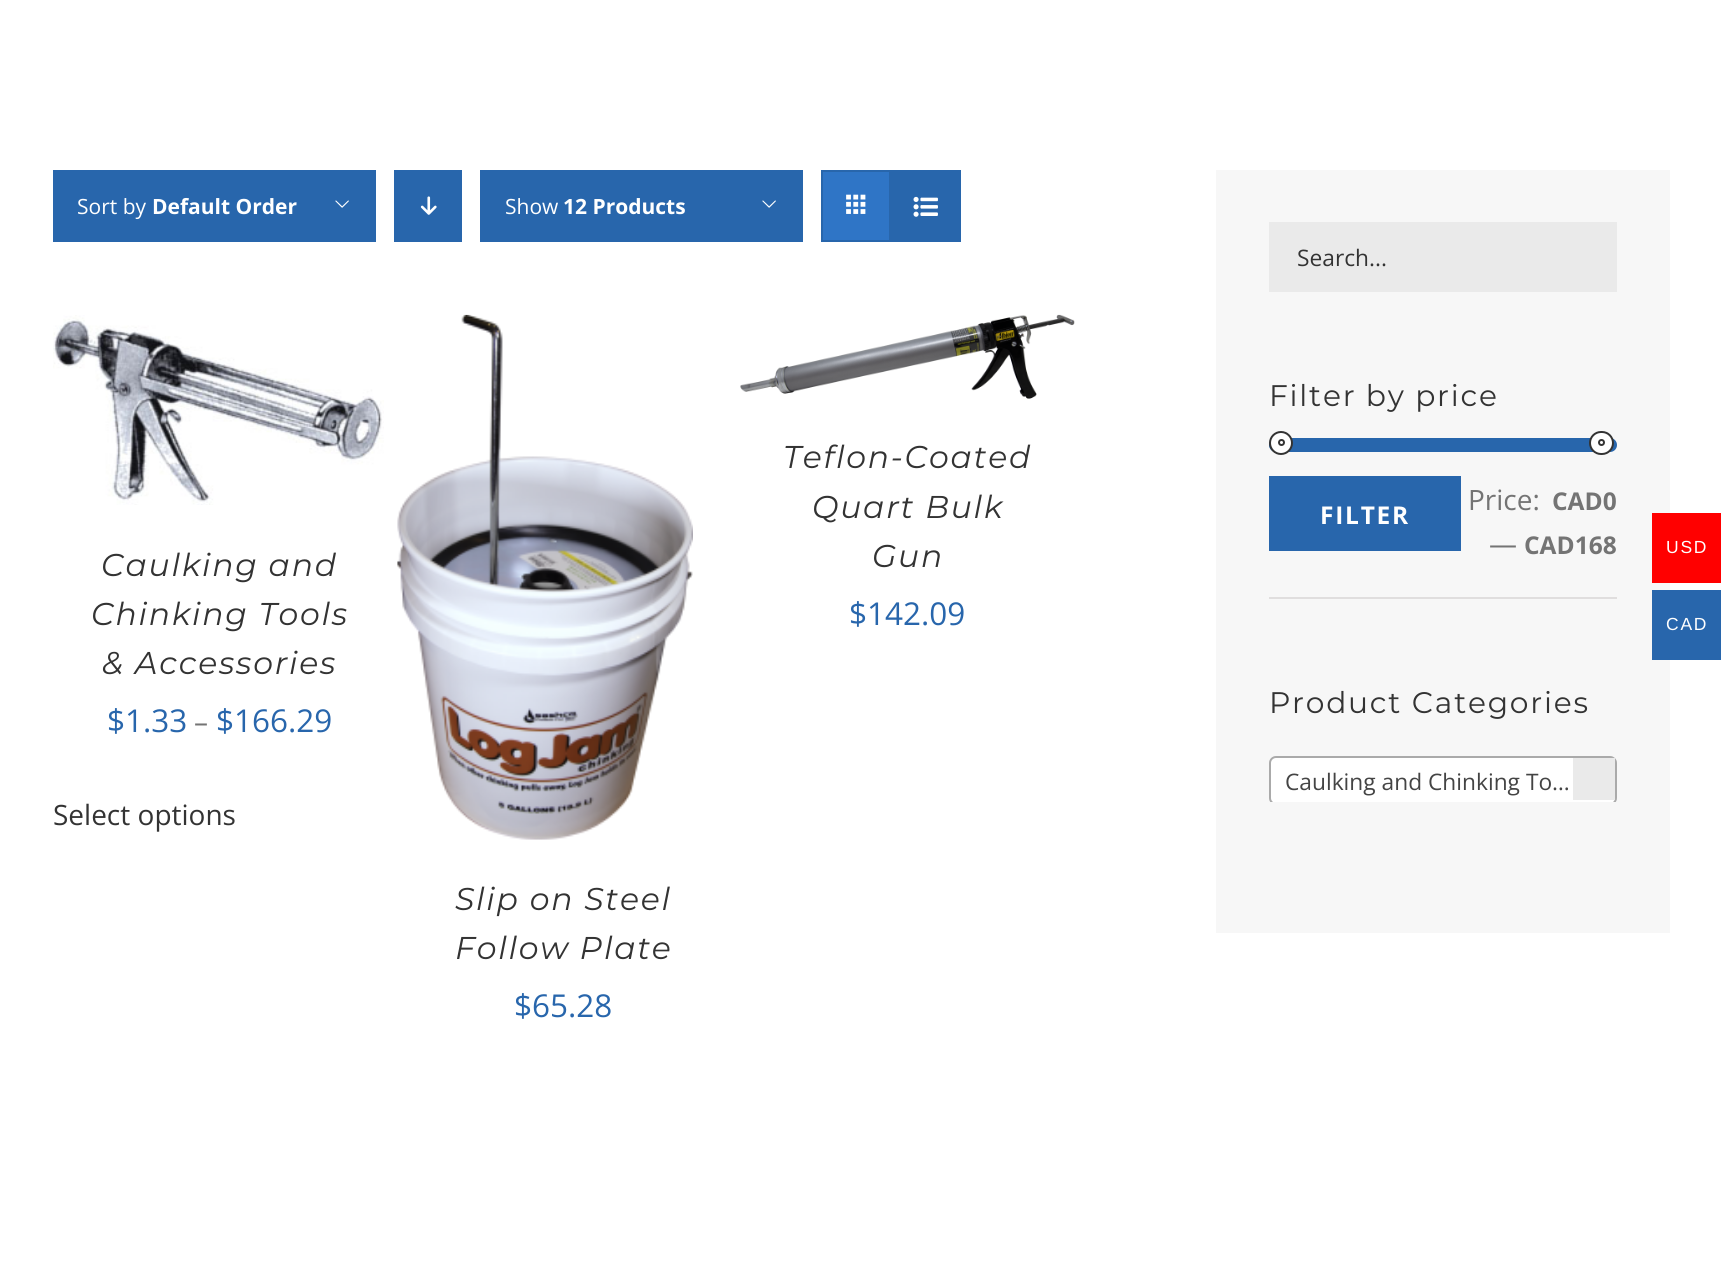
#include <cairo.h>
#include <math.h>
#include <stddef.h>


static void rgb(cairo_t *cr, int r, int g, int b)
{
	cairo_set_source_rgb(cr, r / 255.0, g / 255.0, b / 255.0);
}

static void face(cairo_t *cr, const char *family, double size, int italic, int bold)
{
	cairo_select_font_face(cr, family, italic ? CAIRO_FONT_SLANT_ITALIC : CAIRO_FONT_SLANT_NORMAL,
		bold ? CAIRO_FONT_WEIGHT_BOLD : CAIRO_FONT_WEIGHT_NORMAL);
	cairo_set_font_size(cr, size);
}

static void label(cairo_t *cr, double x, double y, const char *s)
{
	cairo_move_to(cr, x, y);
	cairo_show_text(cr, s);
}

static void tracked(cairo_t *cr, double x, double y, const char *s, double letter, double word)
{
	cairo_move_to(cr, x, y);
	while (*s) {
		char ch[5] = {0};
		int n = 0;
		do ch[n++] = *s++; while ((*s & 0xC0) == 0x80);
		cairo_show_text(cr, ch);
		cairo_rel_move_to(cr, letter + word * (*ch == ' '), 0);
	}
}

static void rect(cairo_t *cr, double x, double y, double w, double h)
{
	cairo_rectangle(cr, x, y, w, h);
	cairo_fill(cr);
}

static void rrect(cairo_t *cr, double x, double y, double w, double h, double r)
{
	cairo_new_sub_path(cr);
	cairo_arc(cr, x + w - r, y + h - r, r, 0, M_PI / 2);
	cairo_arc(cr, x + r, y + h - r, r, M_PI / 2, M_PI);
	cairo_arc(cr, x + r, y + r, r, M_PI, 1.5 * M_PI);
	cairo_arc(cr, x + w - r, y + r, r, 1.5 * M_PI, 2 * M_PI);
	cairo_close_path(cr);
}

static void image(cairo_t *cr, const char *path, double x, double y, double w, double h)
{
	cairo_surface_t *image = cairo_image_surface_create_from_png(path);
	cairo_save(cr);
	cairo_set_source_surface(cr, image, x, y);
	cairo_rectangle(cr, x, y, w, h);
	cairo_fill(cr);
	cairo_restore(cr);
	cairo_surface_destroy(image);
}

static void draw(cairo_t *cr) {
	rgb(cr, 255, 255, 255);
	cairo_paint(cr);
	rgb(cr, 40, 102, 172);
	rect(cr, 53, 170, 323, 72);
	face(cr, "Open Sans", 21, 0, 0);
	rgb(cr, 255, 255, 255);
	label(cr, 77, 214, "Sort by");
	face(cr, "Open Sans", 21, 0, 1);
	label(cr, 152, 214, "Default Order");
	image(cr, "image0.png", 335, 200, 14, 8);
	rgb(cr, 40, 102, 172);
	rect(cr, 394, 170, 68, 72);
	image(cr, "image1.png", 420, 196, 17, 19);
	rect(cr, 480, 170, 323, 72);
	face(cr, "Open Sans", 21, 0, 0);
	rgb(cr, 255, 255, 255);
	label(cr, 505, 214, "Show");
	face(cr, "Open Sans", 21, 0, 1);
	label(cr, 563, 214, "12 Products");
	image(cr, "image0.png", 762, 200, 14, 8);
	cairo_rectangle(cr, 822, 171, 138, 70);
	rgb(cr, 40, 102, 172);
	cairo_stroke(cr);
	rgb(cr, 47, 117, 198);
	rect(cr, 823, 172, 66, 68);
	rgb(cr, 40, 102, 172);
	rect(cr, 889, 172, 70, 68);
	image(cr, "image2.png", 846, 194, 20, 20);
	image(cr, "image3.png", 913, 196, 25, 21);
	image(cr, "image4.png", 53, 315, 331, 190);
	face(cr, "Montserrat Thin", 31.5, 1, 0);
	rgb(cr, 51, 51, 51);
	tracked(cr, 101, 576, "Caulking and", 1.75, 0);
	tracked(cr, 91, 625, "Chinking Tools", 1.75, 0);
	tracked(cr, 102, 674, "& Accessories", 1.75, 0);
	face(cr, "Open Sans", 31.5, 0, 0);
	rgb(cr, 40, 102, 172);
	label(cr, 107, 732, "$1.33");
	face(cr, "Open Sans", 28, 0, 0);
	rgb(cr, 116, 116, 116);
	label(cr, 194, 732, "–");
	face(cr, "Open Sans", 31.5, 0, 0);
	rgb(cr, 40, 102, 172);
	label(cr, 216, 732, "$166.29");
	face(cr, "Open Sans", 28, 0, 0);
	rgb(cr, 51, 51, 51);
	label(cr, 53, 825, "Select options");
	image(cr, "image5.png", 740, 314, 335, 85);
	face(cr, "Montserrat Thin", 31.5, 1, 0);
	tracked(cr, 783, 468, "Teflon-Coated", 1.75, 0);
	tracked(cr, 812, 518, "Quart Bulk", 1.75, 0);
	tracked(cr, 872, 567, "Gun", 1.75, 0);
	face(cr, "Open Sans", 31.5, 0, 0);
	rgb(cr, 40, 102, 172);
	label(cr, 849, 625, "$142.09");
	image(cr, "image6.png", 397, 314, 296, 526);
	face(cr, "Montserrat Thin", 31.5, 1, 0);
	rgb(cr, 51, 51, 51);
	tracked(cr, 455, 910, "Slip on Steel", 1.75, 0);
	tracked(cr, 455, 959, "Follow Plate", 1.75, 0);
	face(cr, "Open Sans", 31.5, 0, 0);
	rgb(cr, 40, 102, 172);
	label(cr, 514, 1017, "$65.28");
	rgb(cr, 247, 247, 247);
	rect(cr, 1216, 170, 454, 763);
	rgb(cr, 234, 234, 234);
	rect(cr, 1269, 222, 348, 70);
	face(cr, "Open Sans", 22.75, 0, 0);
	rgb(cr, 51, 51, 51);
	label(cr, 1297, 266, "Search...");
	face(cr, "Montserrat Thin", 29.75, 0, 0);
	tracked(cr, 1269, 406, "Filter by price", 1.75, 0);
	rgb(cr, 224, 222, 222);
	rect(cr, 1269, 597, 348, 2);
	rgb(cr, 40, 102, 172);
	rrect(cr, 1269, 438, 348, 14, 7);
	cairo_fill(cr);
	rgb(cr, 255, 255, 255);
	cairo_arc(cr, 1281, 443, 11, 0, 2 * M_PI);
	cairo_fill_preserve(cr);
	rgb(cr, 51, 51, 51);
	cairo_stroke(cr);
	cairo_arc(cr, 1281.5, 442.5, 2.5, 0, 2 * M_PI);
	cairo_stroke(cr);
	rgb(cr, 255, 255, 255);
	rrect(cr, 1590, 432, 23, 22, 11);
	cairo_fill_preserve(cr);
	rgb(cr, 51, 51, 51);
	cairo_stroke(cr);
	cairo_arc(cr, 1601.5, 442.5, 2.5, 0, 2 * M_PI);
	cairo_stroke(cr);
	rgb(cr, 40, 102, 172);
	rect(cr, 1269, 476, 192, 75);
	face(cr, "Open Sans", 24.5, 0, 1);
	rgb(cr, 255, 255, 255);
	tracked(cr, 1320, 524, "FILTER", 1.75, 0);
	face(cr, "Open Sans", 28, 0, 0);
	rgb(cr, 116, 116, 116);
	label(cr, 1468, 510, "Price:");
	face(cr, "Open Sans", 24.5, 0, 1);
	label(cr, 1552, 510, "CAD0");
	face(cr, "Open Sans", 28, 0, 0);
	label(cr, 1489, 554, "—");
	face(cr, "Open Sans", 24.5, 0, 1);
	label(cr, 1524, 554, "CAD168");
	face(cr, "Montserrat Thin", 29.75, 0, 0);
	rgb(cr, 51, 51, 51);
	tracked(cr, 1269, 713, "Product Categories", 1.75, 0);
	cairo_save(cr);
	cairo_rectangle(cr, 1269, 746, 348, 56);
	cairo_clip(cr);
	rgb(cr, 255, 255, 255);
	rrect(cr, 1270, 757, 346, 47, 6);
	cairo_fill_preserve(cr);
	rgb(cr, 170, 170, 170);
	cairo_stroke(cr);
	cairo_restore(cr);
	face(cr, "Open Sans", 22.75, 0, 0);
	rgb(cr, 68, 68, 68);
	label(cr, 1285, 790, "Caulking and Chinking To…");
	rgb(cr, 234, 234, 234);
	rect(cr, 1573, 758, 42, 42);
	rgb(cr, 255, 0, 0);
	rect(cr, 1652, 513, 69, 70);
	face(cr, "Liberation Sans", 17.5, 0, 0);
	rgb(cr, 255, 255, 255);
	tracked(cr, 1666, 553, "USD", 1.75, 0);
	rgb(cr, 40, 102, 172);
	rect(cr, 1652, 590, 69, 70);
	rgb(cr, 255, 255, 255);
	tracked(cr, 1666, 630, "CAD", 1.75, 0);
}

int main(void) {
	cairo_surface_t *surface = cairo_image_surface_create(CAIRO_FORMAT_RGB24, 1721, 1263);
	cairo_t *cr = cairo_create(surface);
	cairo_font_options_t *options = cairo_font_options_create();
	cairo_font_options_set_hint_metrics(options, CAIRO_HINT_METRICS_OFF);
	cairo_font_options_set_hint_style(options, CAIRO_HINT_STYLE_NONE);
	cairo_set_font_options(cr, options);
	cairo_set_miter_limit(cr, 4);
	draw(cr);
	cairo_surface_write_to_png(surface, "render.png");
	cairo_font_options_destroy(options);
	cairo_destroy(cr);
	cairo_surface_destroy(surface);
	return 0;
}
